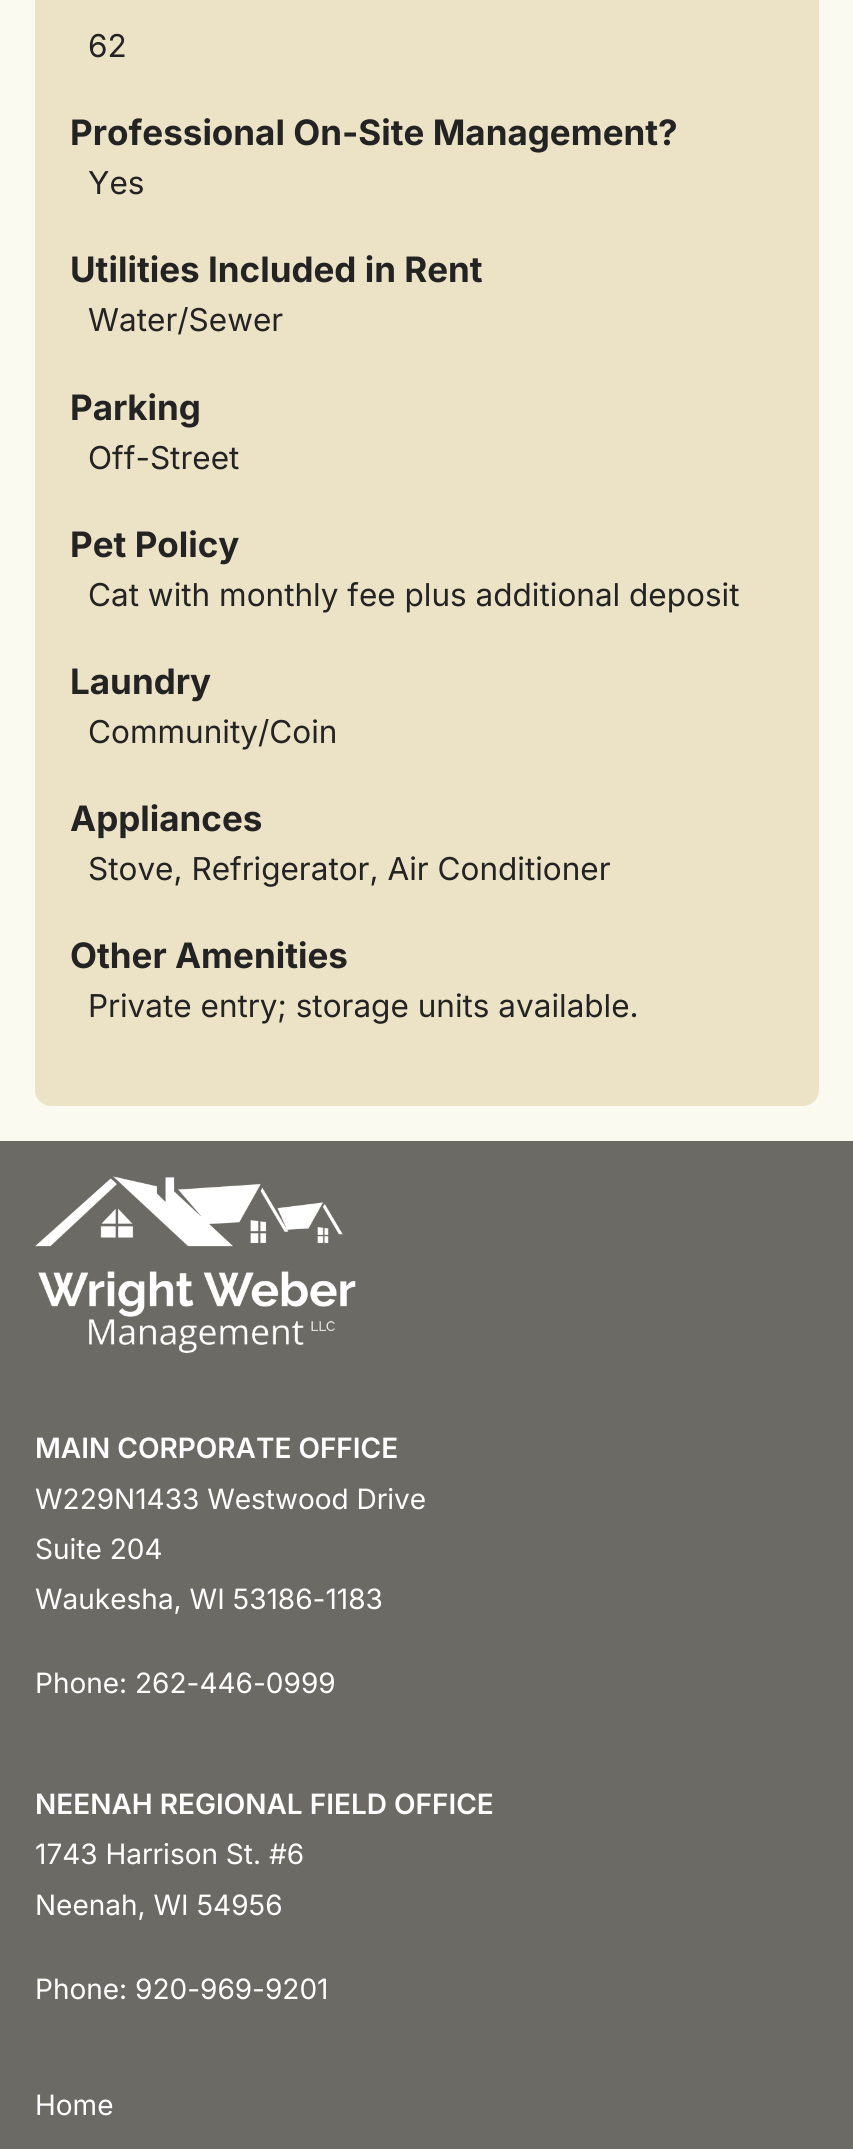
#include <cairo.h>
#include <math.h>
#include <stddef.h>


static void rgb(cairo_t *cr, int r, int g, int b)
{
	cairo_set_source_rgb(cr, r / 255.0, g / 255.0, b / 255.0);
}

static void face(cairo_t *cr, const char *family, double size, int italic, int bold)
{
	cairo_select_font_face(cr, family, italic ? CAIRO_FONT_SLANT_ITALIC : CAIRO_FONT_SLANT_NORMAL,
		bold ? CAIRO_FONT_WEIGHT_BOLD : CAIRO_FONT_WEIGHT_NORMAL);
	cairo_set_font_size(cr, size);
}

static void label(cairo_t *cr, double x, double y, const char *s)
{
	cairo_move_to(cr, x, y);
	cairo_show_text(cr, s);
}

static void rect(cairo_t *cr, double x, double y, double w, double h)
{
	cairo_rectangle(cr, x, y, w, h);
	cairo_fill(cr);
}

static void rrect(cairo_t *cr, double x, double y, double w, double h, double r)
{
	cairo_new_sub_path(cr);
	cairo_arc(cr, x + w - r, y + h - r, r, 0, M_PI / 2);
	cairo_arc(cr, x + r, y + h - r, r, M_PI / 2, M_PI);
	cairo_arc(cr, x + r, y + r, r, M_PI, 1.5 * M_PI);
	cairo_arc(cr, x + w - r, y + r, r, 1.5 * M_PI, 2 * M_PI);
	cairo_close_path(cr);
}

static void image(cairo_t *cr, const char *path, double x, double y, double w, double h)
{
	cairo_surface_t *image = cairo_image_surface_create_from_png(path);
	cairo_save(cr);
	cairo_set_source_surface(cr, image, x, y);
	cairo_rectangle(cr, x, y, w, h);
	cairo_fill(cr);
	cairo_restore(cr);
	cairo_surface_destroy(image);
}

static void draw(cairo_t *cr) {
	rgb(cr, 251, 250, 241);
	cairo_paint(cr);
	rgb(cr, 236, 227, 198);
	rrect(cr, 35, -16, 784, 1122, 16);
	cairo_fill(cr);
	face(cr, "Inter", 31.5, 0, 0);
	rgb(cr, 35, 35, 35);
	label(cr, 88, 57, "62");
	face(cr, "Inter", 35, 0, 1);
	label(cr, 70, 145, "Professional On-Site Management?");
	face(cr, "Inter", 31.5, 0, 0);
	label(cr, 88, 194, "Yes");
	face(cr, "Inter", 35, 0, 1);
	label(cr, 70, 282, "Utilities Included in Rent");
	face(cr, "Inter", 31.5, 0, 0);
	label(cr, 88, 331, "Water/Sewer");
	face(cr, "Inter", 35, 0, 1);
	label(cr, 70, 420, "Parking");
	face(cr, "Inter", 31.5, 0, 0);
	label(cr, 88, 469, "Off-Street");
	face(cr, "Inter", 35, 0, 1);
	label(cr, 70, 557, "Pet Policy");
	face(cr, "Inter", 31.5, 0, 0);
	label(cr, 88, 606, "Cat with monthly fee plus additional deposit");
	face(cr, "Inter", 35, 0, 1);
	label(cr, 70, 694, "Laundry");
	face(cr, "Inter", 31.5, 0, 0);
	label(cr, 88, 743, "Community/Coin");
	face(cr, "Inter", 35, 0, 1);
	label(cr, 70, 831, "Appliances");
	face(cr, "Inter", 31.5, 0, 0);
	label(cr, 88, 880, "Stove, Refrigerator, Air Conditioner");
	face(cr, "Inter", 35, 0, 1);
	label(cr, 70, 968, "Other Amenities");
	face(cr, "Inter", 31.5, 0, 0);
	label(cr, 88, 1017, "Private entry; storage units available.");
	rgb(cr, 107, 106, 100);
	rect(cr, 0, 1141, 853, 1008);
	image(cr, "image0.png", 35, 1176, 321, 177);
	face(cr, "Inter SemiBold", 28, 0, 0);
	rgb(cr, 255, 255, 255);
	label(cr, 35, 1458, "MAIN CORPORATE OFFICE");
	face(cr, "Inter", 28, 0, 0);
	label(cr, 35, 1509, "W229N1433 Westwood Drive");
	label(cr, 35, 1559, "Suite 204");
	label(cr, 35, 1609, "Waukesha, WI 53186-1183");
	label(cr, 35, 1693, "Phone: 262-446-0999");
	face(cr, "Inter SemiBold", 28, 0, 0);
	label(cr, 35, 1814, "NEENAH REGIONAL FIELD OFFICE");
	face(cr, "Inter", 28, 0, 0);
	label(cr, 35, 1864, "1743 Harrison St. #6");
	label(cr, 35, 1915, "Neenah, WI 54956");
	label(cr, 35, 1999, "Phone: 920-969-9201");
	label(cr, 35, 2115, "Home");
}

int main(void) {
	cairo_surface_t *surface = cairo_image_surface_create(CAIRO_FORMAT_RGB24, 853, 2149);
	cairo_t *cr = cairo_create(surface);
	cairo_font_options_t *options = cairo_font_options_create();
	cairo_font_options_set_hint_metrics(options, CAIRO_HINT_METRICS_OFF);
	cairo_font_options_set_hint_style(options, CAIRO_HINT_STYLE_NONE);
	cairo_set_font_options(cr, options);
	cairo_set_miter_limit(cr, 4);
	draw(cr);
	cairo_surface_write_to_png(surface, "render.png");
	cairo_font_options_destroy(options);
	cairo_destroy(cr);
	cairo_surface_destroy(surface);
	return 0;
}
